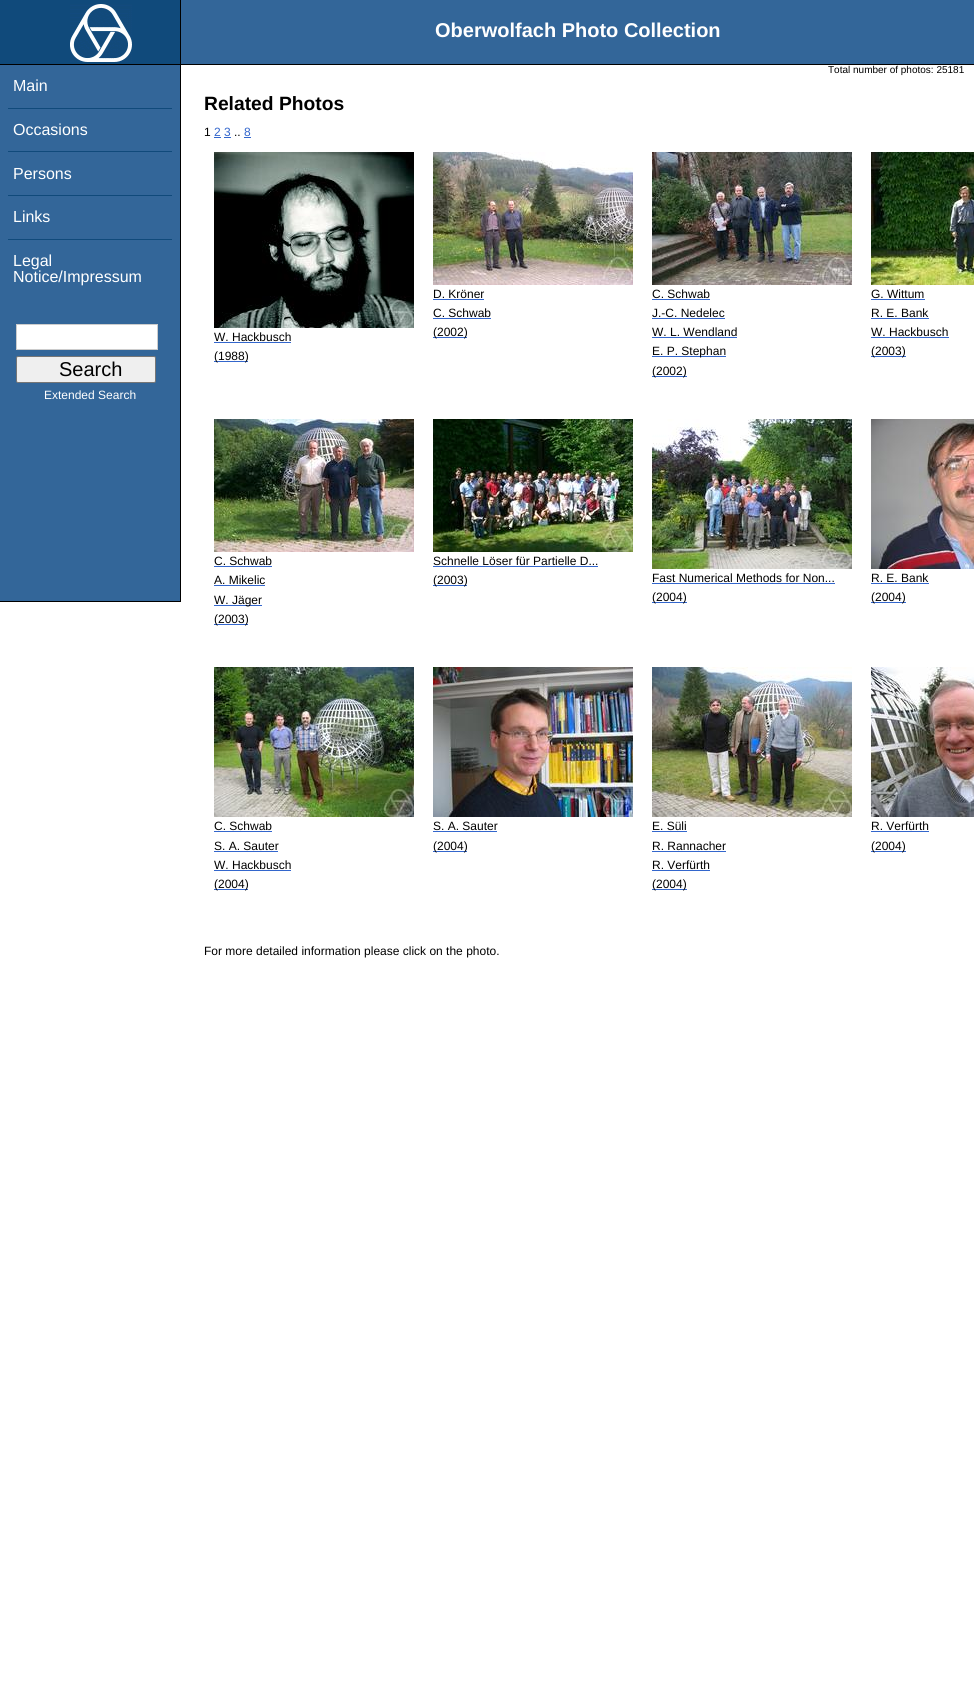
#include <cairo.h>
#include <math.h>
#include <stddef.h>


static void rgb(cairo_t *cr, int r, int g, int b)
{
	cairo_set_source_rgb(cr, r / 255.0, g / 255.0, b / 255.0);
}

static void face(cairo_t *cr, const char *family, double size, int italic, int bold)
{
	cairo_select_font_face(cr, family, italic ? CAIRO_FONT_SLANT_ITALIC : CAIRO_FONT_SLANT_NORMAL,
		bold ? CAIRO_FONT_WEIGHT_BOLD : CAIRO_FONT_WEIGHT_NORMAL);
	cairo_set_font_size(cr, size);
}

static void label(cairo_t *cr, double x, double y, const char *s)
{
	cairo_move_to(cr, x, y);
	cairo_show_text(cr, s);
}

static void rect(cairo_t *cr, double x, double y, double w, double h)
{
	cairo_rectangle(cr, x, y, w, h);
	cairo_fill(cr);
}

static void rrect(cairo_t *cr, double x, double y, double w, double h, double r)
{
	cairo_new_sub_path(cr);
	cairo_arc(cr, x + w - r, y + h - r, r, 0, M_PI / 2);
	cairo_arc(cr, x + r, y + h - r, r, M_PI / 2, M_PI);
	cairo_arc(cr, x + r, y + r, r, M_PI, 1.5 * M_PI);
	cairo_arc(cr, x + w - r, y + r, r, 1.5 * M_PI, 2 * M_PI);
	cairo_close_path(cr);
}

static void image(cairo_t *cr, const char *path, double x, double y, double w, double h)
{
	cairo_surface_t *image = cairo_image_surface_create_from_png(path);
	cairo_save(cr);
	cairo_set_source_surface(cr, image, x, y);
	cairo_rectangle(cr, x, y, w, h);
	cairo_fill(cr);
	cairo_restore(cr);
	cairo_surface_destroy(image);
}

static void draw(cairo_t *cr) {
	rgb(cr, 255, 255, 255);
	cairo_paint(cr);
	rgb(cr, 51, 102, 153);
	rect(cr, 181, 0, 793, 64);
	rgb(cr, 0, 0, 0);
	rect(cr, 0, 64, 974, 1);
	rgb(cr, 16, 74, 123);
	rect(cr, 0, 0, 180, 64);
	rgb(cr, 0, 0, 0);
	rect(cr, 180, 0, 1, 64);
	image(cr, "image0.png", 70, 4, 62, 58);
	face(cr, "Liberation Sans", 20, 0, 1);
	rgb(cr, 255, 255, 255);
	label(cr, 435, 37, "Oberwolfach Photo Collection");
	face(cr, "Liberation Sans", 10, 0, 0);
	rgb(cr, 0, 0, 0);
	label(cr, 828, 73, "Total number of photos: 25181");
	rgb(cr, 51, 102, 153);
	rect(cr, 0, 65, 180, 536);
	rgb(cr, 0, 0, 0);
	rect(cr, 180, 65, 1, 537);
	rect(cr, 0, 601, 181, 1);
	face(cr, "Liberation Sans", 16, 0, 0);
	rgb(cr, 255, 255, 255);
	label(cr, 13, 91, "Main");
	rgb(cr, 16, 74, 123);
	rect(cr, 8, 108, 164, 1);
	rgb(cr, 255, 255, 255);
	label(cr, 13, 135, "Occasions");
	rgb(cr, 16, 74, 123);
	rect(cr, 8, 151, 164, 1);
	rgb(cr, 255, 255, 255);
	label(cr, 13, 179, "Persons");
	rgb(cr, 16, 74, 123);
	rect(cr, 8, 195, 164, 1);
	rgb(cr, 255, 255, 255);
	label(cr, 13, 222, "Links");
	rgb(cr, 16, 74, 123);
	rect(cr, 8, 239, 164, 1);
	rgb(cr, 255, 255, 255);
	label(cr, 13, 266, "Legal");
	label(cr, 13, 282, "Notice/Impressum");
	cairo_rectangle(cr, 16.5, 324.5, 141, 25);
	cairo_fill_preserve(cr);
	rgb(cr, 204, 204, 204);
	cairo_set_line_width(cr, 1);
	cairo_stroke(cr);
	rgb(cr, 239, 239, 239);
	rrect(cr, 16.5, 356.5, 139, 26, 1.5);
	cairo_fill_preserve(cr);
	rgb(cr, 118, 118, 118);
	cairo_stroke(cr);
	face(cr, "Liberation Sans", 20, 0, 0);
	rgb(cr, 0, 0, 0);
	label(cr, 59, 376, "Search");
	face(cr, "Liberation Sans", 12, 0, 0);
	rgb(cr, 255, 255, 255);
	label(cr, 44, 399, "Extended Search");
	face(cr, "Liberation Sans", 19.25, 0, 1);
	rgb(cr, 0, 0, 0);
	label(cr, 204, 110, "Related Photos");
	face(cr, "Liberation Sans", 12, 0, 0);
	label(cr, 204, 136, "1");
	rgb(cr, 51, 102, 204);
	label(cr, 214, 136, "2 3");
	rect(cr, 214, 137, 7, 1);
	rgb(cr, 0, 0, 0);
	label(cr, 234, 136, "..");
	rgb(cr, 51, 102, 204);
	label(cr, 244, 136, "8");
	rect(cr, 244, 137, 7, 1);
	rect(cr, 224, 137, 7, 1);
	image(cr, "image1.png", 214, 152, 200, 176);
	rgb(cr, 0, 0, 0);
	label(cr, 214, 341, "W. Hackbusch");
	rgb(cr, 51, 102, 204);
	rect(cr, 214, 342, 77, 1);
	rect(cr, 214, 361, 34, 1);
	rgb(cr, 0, 0, 0);
	label(cr, 214, 360, "(1988)");
	image(cr, "image2.png", 433, 152, 200, 133);
	label(cr, 433, 298, "D. Kröner");
	rgb(cr, 51, 102, 204);
	rect(cr, 433, 299, 51, 1);
	rgb(cr, 0, 0, 0);
	label(cr, 433, 317, "C. Schwab");
	rgb(cr, 51, 102, 204);
	rect(cr, 433, 318, 58, 1);
	rect(cr, 433, 337, 34, 1);
	rgb(cr, 0, 0, 0);
	label(cr, 433, 336, "(2002)");
	image(cr, "image3.png", 652, 152, 200, 133);
	label(cr, 652, 298, "C. Schwab");
	rgb(cr, 51, 102, 204);
	rect(cr, 652, 299, 58, 1);
	rgb(cr, 0, 0, 0);
	label(cr, 652, 317, "J.-C. Nedelec");
	rgb(cr, 51, 102, 204);
	rect(cr, 652, 318, 73, 1);
	rgb(cr, 0, 0, 0);
	label(cr, 652, 336, "W. L. Wendland");
	rgb(cr, 51, 102, 204);
	rect(cr, 652, 337, 85, 1);
	rect(cr, 652, 356, 74, 1);
	rgb(cr, 0, 0, 0);
	label(cr, 652, 355, "E. P. Stephan");
	rgb(cr, 51, 102, 204);
	rect(cr, 652, 376, 35, 1);
	rgb(cr, 0, 0, 0);
	label(cr, 652, 375, "(2002)");
	image(cr, "image4.png", 871, 152, 103, 133);
	label(cr, 871, 298, "G. Wittum");
	rgb(cr, 51, 102, 204);
	rect(cr, 871, 299, 54, 1);
	rgb(cr, 0, 0, 0);
	label(cr, 871, 317, "R. E. Bank");
	rgb(cr, 51, 102, 204);
	rect(cr, 871, 318, 58, 1);
	rgb(cr, 0, 0, 0);
	label(cr, 871, 336, "W. Hackbusch");
	rgb(cr, 51, 102, 204);
	rect(cr, 871, 337, 78, 1);
	rect(cr, 871, 356, 35, 1);
	rgb(cr, 0, 0, 0);
	label(cr, 871, 355, "(2003)");
	image(cr, "image5.png", 214, 419, 200, 133);
	label(cr, 214, 565, "C. Schwab");
	rgb(cr, 51, 102, 204);
	rect(cr, 214, 566, 58, 1);
	rgb(cr, 0, 0, 0);
	label(cr, 214, 584, "A. Mikelic");
	rgb(cr, 51, 102, 204);
	rect(cr, 214, 585, 51, 1);
	rect(cr, 214, 605, 48, 1);
	rgb(cr, 0, 0, 0);
	label(cr, 214, 604, "W. Jäger");
	rgb(cr, 51, 102, 204);
	rect(cr, 214, 624, 34, 1);
	rgb(cr, 0, 0, 0);
	label(cr, 214, 623, "(2003)");
	image(cr, "image6.png", 433, 419, 200, 133);
	label(cr, 433, 565, "Schnelle Löser für Partielle D...");
	rgb(cr, 51, 102, 204);
	rect(cr, 433, 566, 165, 1);
	rect(cr, 433, 585, 34, 1);
	rgb(cr, 0, 0, 0);
	label(cr, 433, 584, "(2003)");
	image(cr, "image7.png", 652, 419, 200, 150);
	label(cr, 652, 582, "Fast Numerical Methods for Non...");
	rgb(cr, 51, 102, 204);
	rect(cr, 652, 583, 183, 1);
	rect(cr, 652, 602, 35, 1);
	rgb(cr, 0, 0, 0);
	label(cr, 652, 601, "(2004)");
	image(cr, "image8.png", 871, 419, 103, 150);
	label(cr, 871, 582, "R. E. Bank");
	rgb(cr, 51, 102, 204);
	rect(cr, 871, 583, 58, 1);
	rect(cr, 871, 602, 35, 1);
	rgb(cr, 0, 0, 0);
	label(cr, 871, 601, "(2004)");
	image(cr, "image9.png", 214, 667, 200, 150);
	label(cr, 214, 830, "C. Schwab");
	rgb(cr, 51, 102, 204);
	rect(cr, 214, 831, 58, 1);
	rgb(cr, 0, 0, 0);
	label(cr, 214, 850, "S. A. Sauter");
	rgb(cr, 51, 102, 204);
	rect(cr, 214, 851, 64, 1);
	rgb(cr, 0, 0, 0);
	label(cr, 214, 869, "W. Hackbusch");
	rgb(cr, 51, 102, 204);
	rect(cr, 214, 870, 77, 1);
	rect(cr, 214, 889, 34, 1);
	rgb(cr, 0, 0, 0);
	label(cr, 214, 888, "(2004)");
	image(cr, "image10.png", 433, 667, 200, 150);
	label(cr, 433, 830, "S. A. Sauter");
	rgb(cr, 51, 102, 204);
	rect(cr, 433, 831, 64, 1);
	rect(cr, 433, 851, 34, 1);
	rgb(cr, 0, 0, 0);
	label(cr, 433, 850, "(2004)");
	image(cr, "image11.png", 652, 667, 200, 150);
	label(cr, 652, 830, "E. Süli");
	rgb(cr, 51, 102, 204);
	rect(cr, 652, 831, 35, 1);
	rgb(cr, 0, 0, 0);
	label(cr, 652, 850, "R. Rannacher");
	rgb(cr, 51, 102, 204);
	rect(cr, 652, 851, 74, 1);
	rgb(cr, 0, 0, 0);
	label(cr, 652, 869, "R. Verfürth");
	rgb(cr, 51, 102, 204);
	rect(cr, 652, 870, 58, 1);
	rect(cr, 652, 889, 35, 1);
	rgb(cr, 0, 0, 0);
	label(cr, 652, 888, "(2004)");
	image(cr, "image12.png", 871, 667, 103, 150);
	label(cr, 871, 830, "R. Verfürth");
	rgb(cr, 51, 102, 204);
	rect(cr, 871, 831, 58, 1);
	rect(cr, 871, 851, 35, 1);
	rgb(cr, 0, 0, 0);
	label(cr, 871, 850, "(2004)");
	label(cr, 204, 955, "For more detailed information please click on the photo.");
}

int main(void) {
	cairo_surface_t *surface = cairo_image_surface_create(CAIRO_FORMAT_RGB24, 974, 1703);
	cairo_t *cr = cairo_create(surface);
	cairo_font_options_t *options = cairo_font_options_create();
	cairo_font_options_set_hint_metrics(options, CAIRO_HINT_METRICS_OFF);
	cairo_font_options_set_hint_style(options, CAIRO_HINT_STYLE_NONE);
	cairo_set_font_options(cr, options);
	cairo_set_miter_limit(cr, 4);
	draw(cr);
	cairo_surface_write_to_png(surface, "render.png");
	cairo_font_options_destroy(options);
	cairo_destroy(cr);
	cairo_surface_destroy(surface);
	return 0;
}
